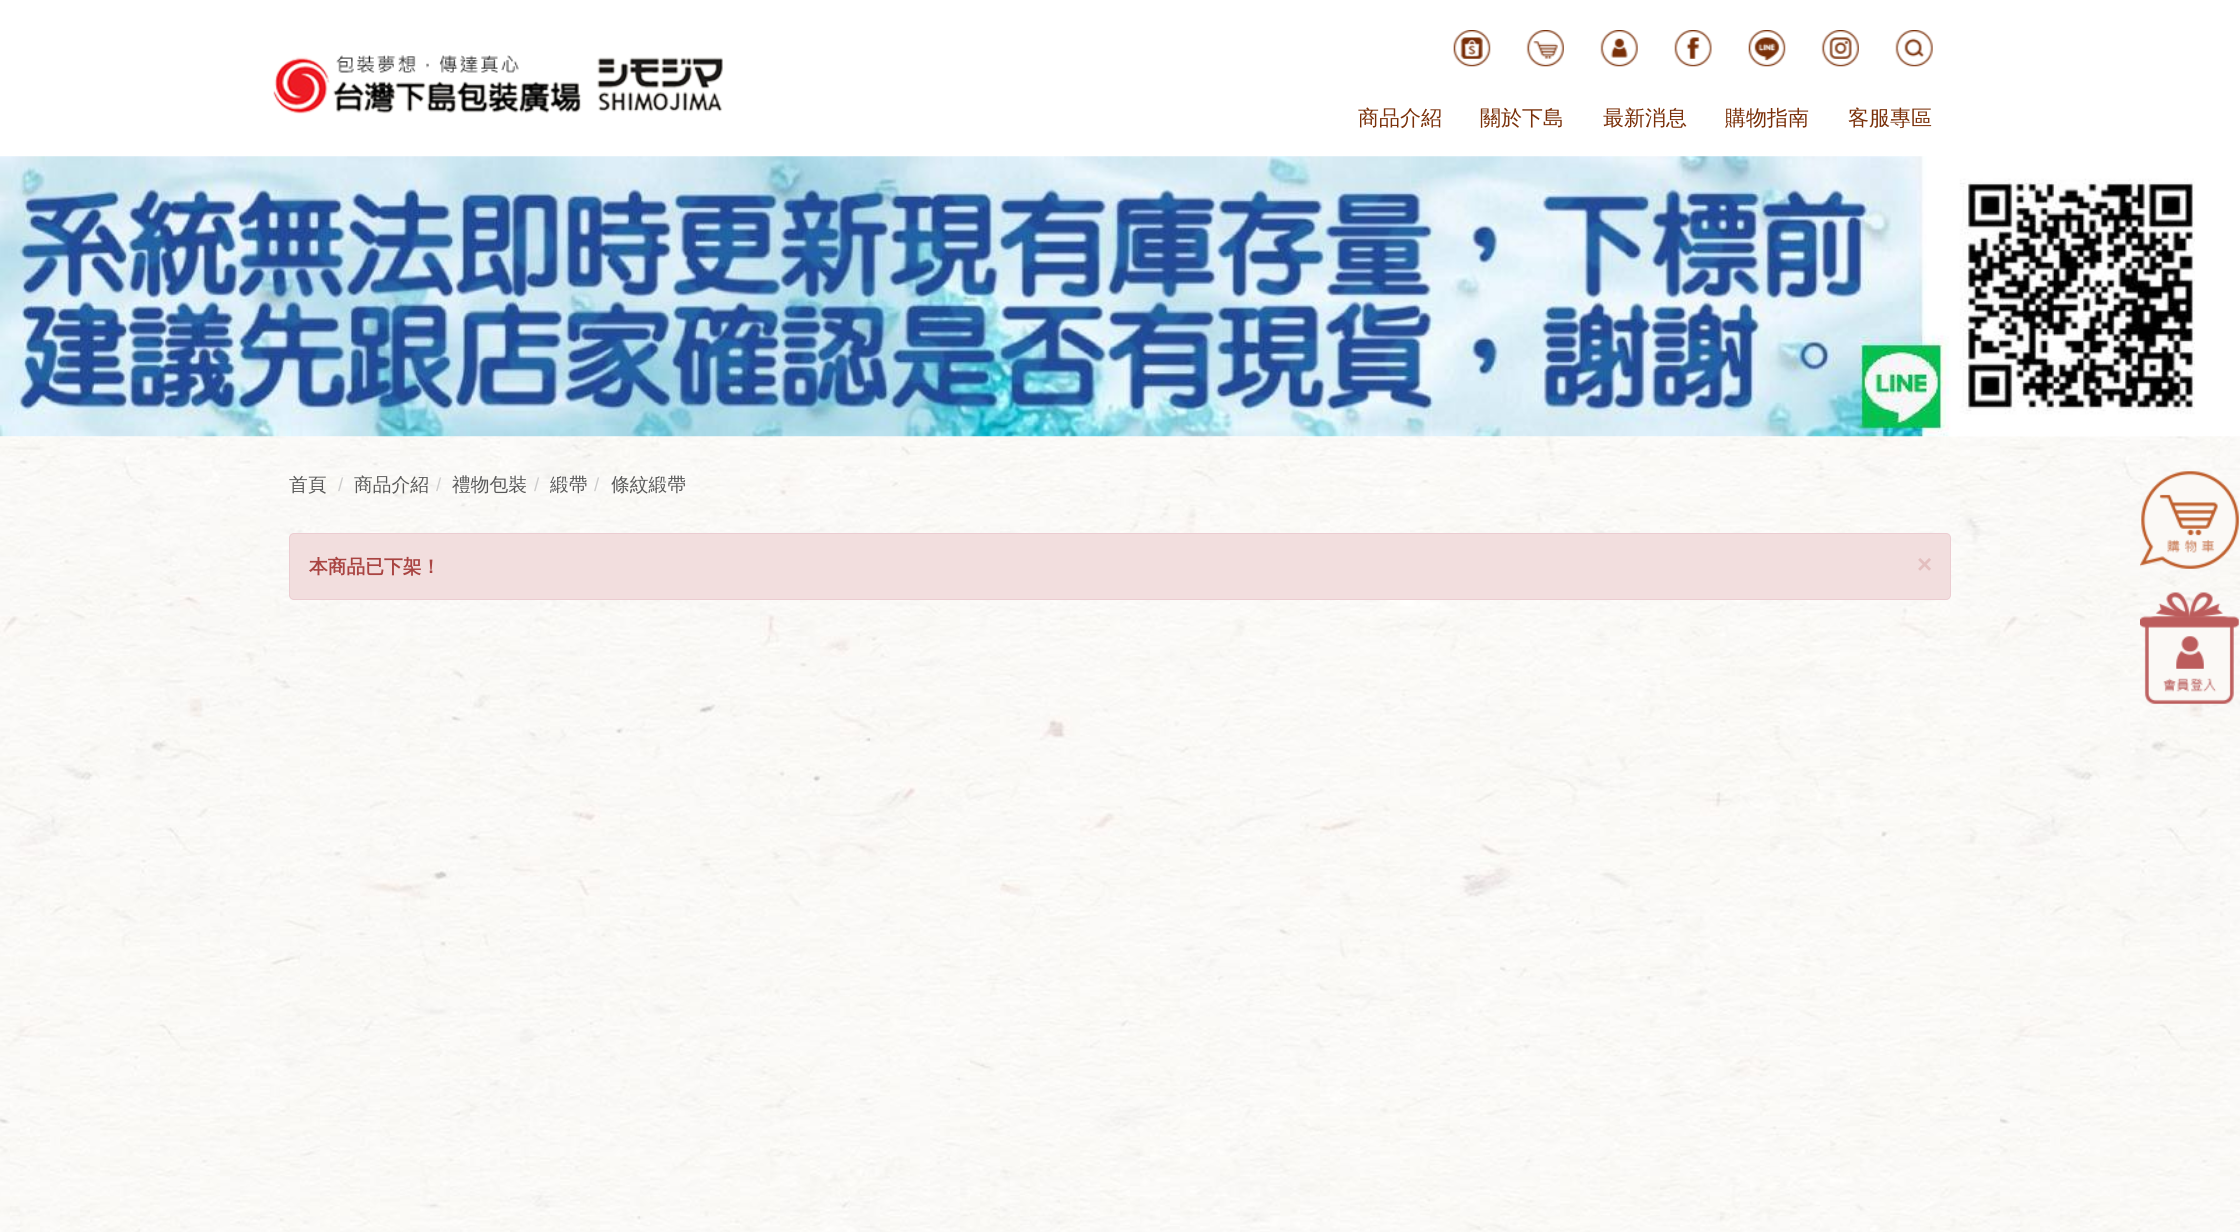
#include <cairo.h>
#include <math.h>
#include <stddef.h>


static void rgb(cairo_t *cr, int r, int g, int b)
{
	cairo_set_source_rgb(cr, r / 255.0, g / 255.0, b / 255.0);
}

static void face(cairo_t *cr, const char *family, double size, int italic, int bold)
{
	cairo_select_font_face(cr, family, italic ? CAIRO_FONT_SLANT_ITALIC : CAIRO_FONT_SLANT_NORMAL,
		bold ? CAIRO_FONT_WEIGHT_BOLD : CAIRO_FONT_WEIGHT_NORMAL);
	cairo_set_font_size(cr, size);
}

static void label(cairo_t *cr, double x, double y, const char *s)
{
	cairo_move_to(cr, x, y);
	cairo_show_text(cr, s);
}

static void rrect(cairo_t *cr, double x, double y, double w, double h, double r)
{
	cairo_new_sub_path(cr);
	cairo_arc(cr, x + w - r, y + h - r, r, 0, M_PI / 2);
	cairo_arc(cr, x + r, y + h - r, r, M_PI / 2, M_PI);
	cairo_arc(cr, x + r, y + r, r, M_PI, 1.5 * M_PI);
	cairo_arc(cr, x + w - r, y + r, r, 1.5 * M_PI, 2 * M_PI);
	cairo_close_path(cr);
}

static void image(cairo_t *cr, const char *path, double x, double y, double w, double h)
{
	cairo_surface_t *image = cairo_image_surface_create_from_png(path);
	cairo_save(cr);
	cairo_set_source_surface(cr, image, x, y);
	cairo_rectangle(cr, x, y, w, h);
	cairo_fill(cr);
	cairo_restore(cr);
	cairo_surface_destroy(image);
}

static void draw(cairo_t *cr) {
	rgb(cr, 255, 255, 255);
	cairo_paint(cr);
	image(cr, "image0.png", 273, 55, 450, 59);
	image(cr, "image1.png", 1453, 30, 38, 37);
	image(cr, "image2.png", 1526, 30, 38, 37);
	image(cr, "image3.png", 1600, 30, 38, 37);
	image(cr, "image4.png", 1674, 30, 38, 37);
	image(cr, "image5.png", 1748, 30, 38, 37);
	image(cr, "image6.png", 1821, 30, 38, 37);
	image(cr, "image7.png", 1895, 30, 38, 37);
	face(cr, "WenQuanYi Zen Hei Medium", 21, 0, 0);
	rgb(cr, 121, 47, 8);
	label(cr, 1358, 125, "商品介紹");
	label(cr, 1480, 125, "關於下島");
	label(cr, 1603, 125, "最新消息");
	label(cr, 1725, 125, "購物指南");
	label(cr, 1848, 125, "客服專區");
	image(cr, "image9.png", 0, 436, 2240, 796);
	image(cr, "image8.png", 0, 156, 2195, 281);
	face(cr, "WenQuanYi Zen Hei Medium", 18.75, 0, 0);
	rgb(cr, 88, 88, 88);
	label(cr, 289, 491, "首頁");
	face(cr, "Liberation Sans", 18.75, 0, 0);
	rgb(cr, 204, 204, 204);
	label(cr, 338, 491, "/");
	face(cr, "WenQuanYi Zen Hei Medium", 18.75, 0, 0);
	rgb(cr, 88, 88, 88);
	label(cr, 354, 491, "商品介紹");
	face(cr, "Liberation Sans", 18.75, 0, 0);
	rgb(cr, 204, 204, 204);
	label(cr, 436, 491, "/");
	face(cr, "WenQuanYi Zen Hei Medium", 18.75, 0, 0);
	rgb(cr, 88, 88, 88);
	label(cr, 452, 491, "禮物包裝");
	face(cr, "Liberation Sans", 18.75, 0, 0);
	rgb(cr, 204, 204, 204);
	label(cr, 534, 491, "/");
	face(cr, "WenQuanYi Zen Hei Medium", 18.75, 0, 0);
	rgb(cr, 88, 88, 88);
	label(cr, 550, 491, "緞帶");
	face(cr, "Liberation Sans", 18.75, 0, 0);
	rgb(cr, 204, 204, 204);
	label(cr, 594, 491, "/");
	face(cr, "WenQuanYi Zen Hei Medium", 18.75, 0, 0);
	rgb(cr, 88, 88, 88);
	label(cr, 611, 491, "條紋緞帶");
	rgb(cr, 242, 222, 222);
	rrect(cr, 289.5, 533.5, 1661, 66, 4.5);
	cairo_fill_preserve(cr);
	rgb(cr, 235, 204, 209);
	cairo_set_line_width(cr, 1);
	cairo_stroke(cr);
	face(cr, "WenQuanYi Zen Hei", 18.75, 0, 1);
	rgb(cr, 169, 68, 66);
	label(cr, 309, 573, "本商品已下架！");
	face(cr, "Liberation Sans", 26, 0, 1);
	rgb(cr, 227, 191, 191);
	label(cr, 1917, 573, "×");
	image(cr, "image10.png", 2140, 471, 99, 98);
	image(cr, "image11.png", 2140, 592, 99, 112);
}

int main(void) {
	cairo_surface_t *surface = cairo_image_surface_create(CAIRO_FORMAT_RGB24, 2240, 1232);
	cairo_t *cr = cairo_create(surface);
	cairo_font_options_t *options = cairo_font_options_create();
	cairo_font_options_set_hint_metrics(options, CAIRO_HINT_METRICS_OFF);
	cairo_font_options_set_hint_style(options, CAIRO_HINT_STYLE_NONE);
	cairo_set_font_options(cr, options);
	cairo_set_miter_limit(cr, 4);
	draw(cr);
	cairo_surface_write_to_png(surface, "render.png");
	cairo_font_options_destroy(options);
	cairo_destroy(cr);
	cairo_surface_destroy(surface);
	return 0;
}
